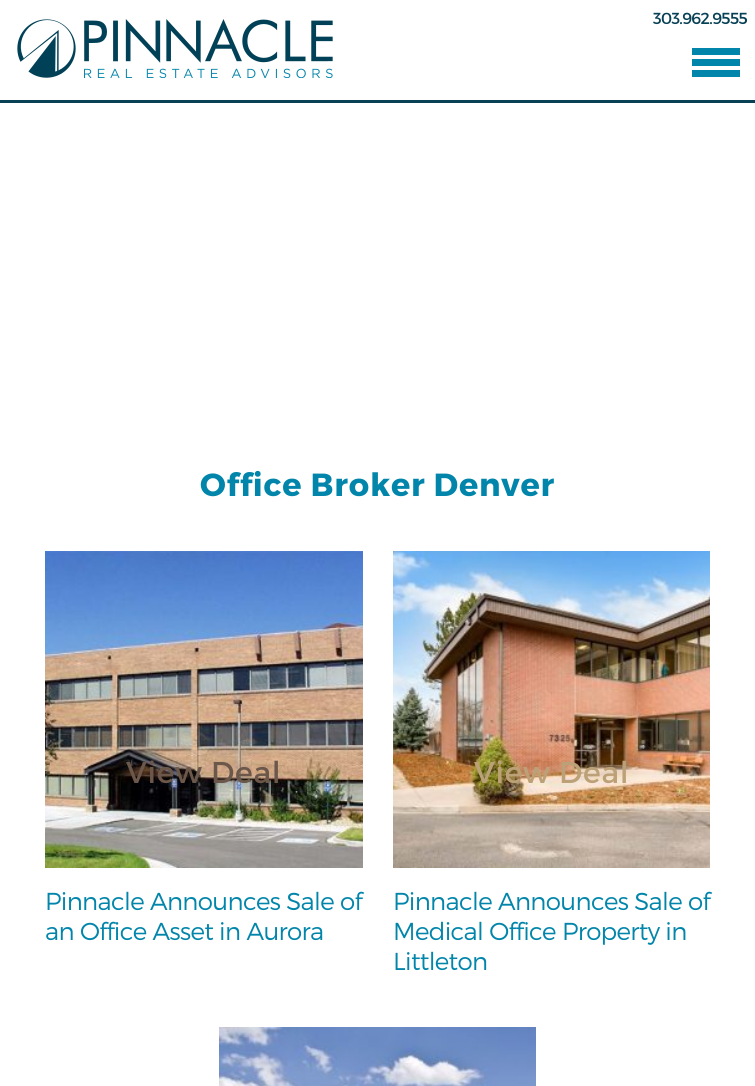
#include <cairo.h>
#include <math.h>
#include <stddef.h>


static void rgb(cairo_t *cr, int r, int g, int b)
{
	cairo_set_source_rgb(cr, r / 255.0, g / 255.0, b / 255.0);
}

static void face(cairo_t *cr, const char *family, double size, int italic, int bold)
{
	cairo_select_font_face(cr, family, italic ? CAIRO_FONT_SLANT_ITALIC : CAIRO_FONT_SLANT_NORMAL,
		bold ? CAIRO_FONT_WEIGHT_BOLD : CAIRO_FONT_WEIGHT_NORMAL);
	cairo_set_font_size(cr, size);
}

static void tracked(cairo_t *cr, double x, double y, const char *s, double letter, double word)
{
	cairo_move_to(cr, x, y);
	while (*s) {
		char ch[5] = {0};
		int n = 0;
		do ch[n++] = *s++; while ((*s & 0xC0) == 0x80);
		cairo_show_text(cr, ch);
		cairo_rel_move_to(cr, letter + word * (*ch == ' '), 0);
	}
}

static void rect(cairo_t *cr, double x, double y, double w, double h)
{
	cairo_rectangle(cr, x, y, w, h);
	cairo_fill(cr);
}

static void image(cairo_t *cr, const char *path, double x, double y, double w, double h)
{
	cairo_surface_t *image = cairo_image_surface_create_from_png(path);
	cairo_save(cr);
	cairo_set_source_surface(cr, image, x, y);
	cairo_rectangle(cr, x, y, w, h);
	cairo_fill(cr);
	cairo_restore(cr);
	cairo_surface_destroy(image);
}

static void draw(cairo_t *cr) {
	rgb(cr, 255, 255, 255);
	cairo_paint(cr);
	rgb(cr, 8, 65, 86);
	rect(cr, 0, 100, 755, 3);
	image(cr, "image0.png", 17, 19, 316, 59);
	face(cr, "Montserrat", 16, 0, 0);
	tracked(cr, 653, 24, "303.962.9555", -0.65, 0);
	rgb(cr, 2, 133, 170);
	rect(cr, 692, 48, 48, 7);
	rect(cr, 692, 59, 48, 7);
	rect(cr, 692, 70, 48, 7);
	face(cr, "Montserrat", 32, 0, 1);
	tracked(cr, 200, 496, "Office Broker Denver", 0.8, 0);
	image(cr, "image1.png", 45, 551, 318, 317);
	face(cr, "Montserrat", 30, 0, 0);
	rgb(cr, 108, 88, 74);
	tracked(cr, 126, 783, "View Deal", 0.75, 0);
	face(cr, "Montserrat Light", 24.5, 0, 0);
	rgb(cr, 2, 133, 170);
	tracked(cr, 45, 910, "Pinnacle Announces Sale of", -0.65, 0);
	tracked(cr, 45, 940, "an Office Asset in Aurora", -0.65, 0);
	image(cr, "image2.png", 393, 551, 317, 317);
	face(cr, "Montserrat", 30, 0, 0);
	rgb(cr, 188, 161, 120);
	tracked(cr, 474, 783, "View Deal", 0.75, 0);
	face(cr, "Montserrat Light", 24.5, 0, 0);
	rgb(cr, 2, 133, 170);
	tracked(cr, 393, 910, "Pinnacle Announces Sale of", -0.65, 0);
	tracked(cr, 393, 940, "Medical Office Property in", -0.65, 0);
	tracked(cr, 393, 970, "Littleton", -0.65, 0);
	image(cr, "image3.png", 219, 1027, 317, 59);
}

int main(void) {
	cairo_surface_t *surface = cairo_image_surface_create(CAIRO_FORMAT_RGB24, 755, 1086);
	cairo_t *cr = cairo_create(surface);
	cairo_font_options_t *options = cairo_font_options_create();
	cairo_font_options_set_hint_metrics(options, CAIRO_HINT_METRICS_OFF);
	cairo_font_options_set_hint_style(options, CAIRO_HINT_STYLE_NONE);
	cairo_set_font_options(cr, options);
	cairo_set_miter_limit(cr, 4);
	draw(cr);
	cairo_surface_write_to_png(surface, "render.png");
	cairo_font_options_destroy(options);
	cairo_destroy(cr);
	cairo_surface_destroy(surface);
	return 0;
}
